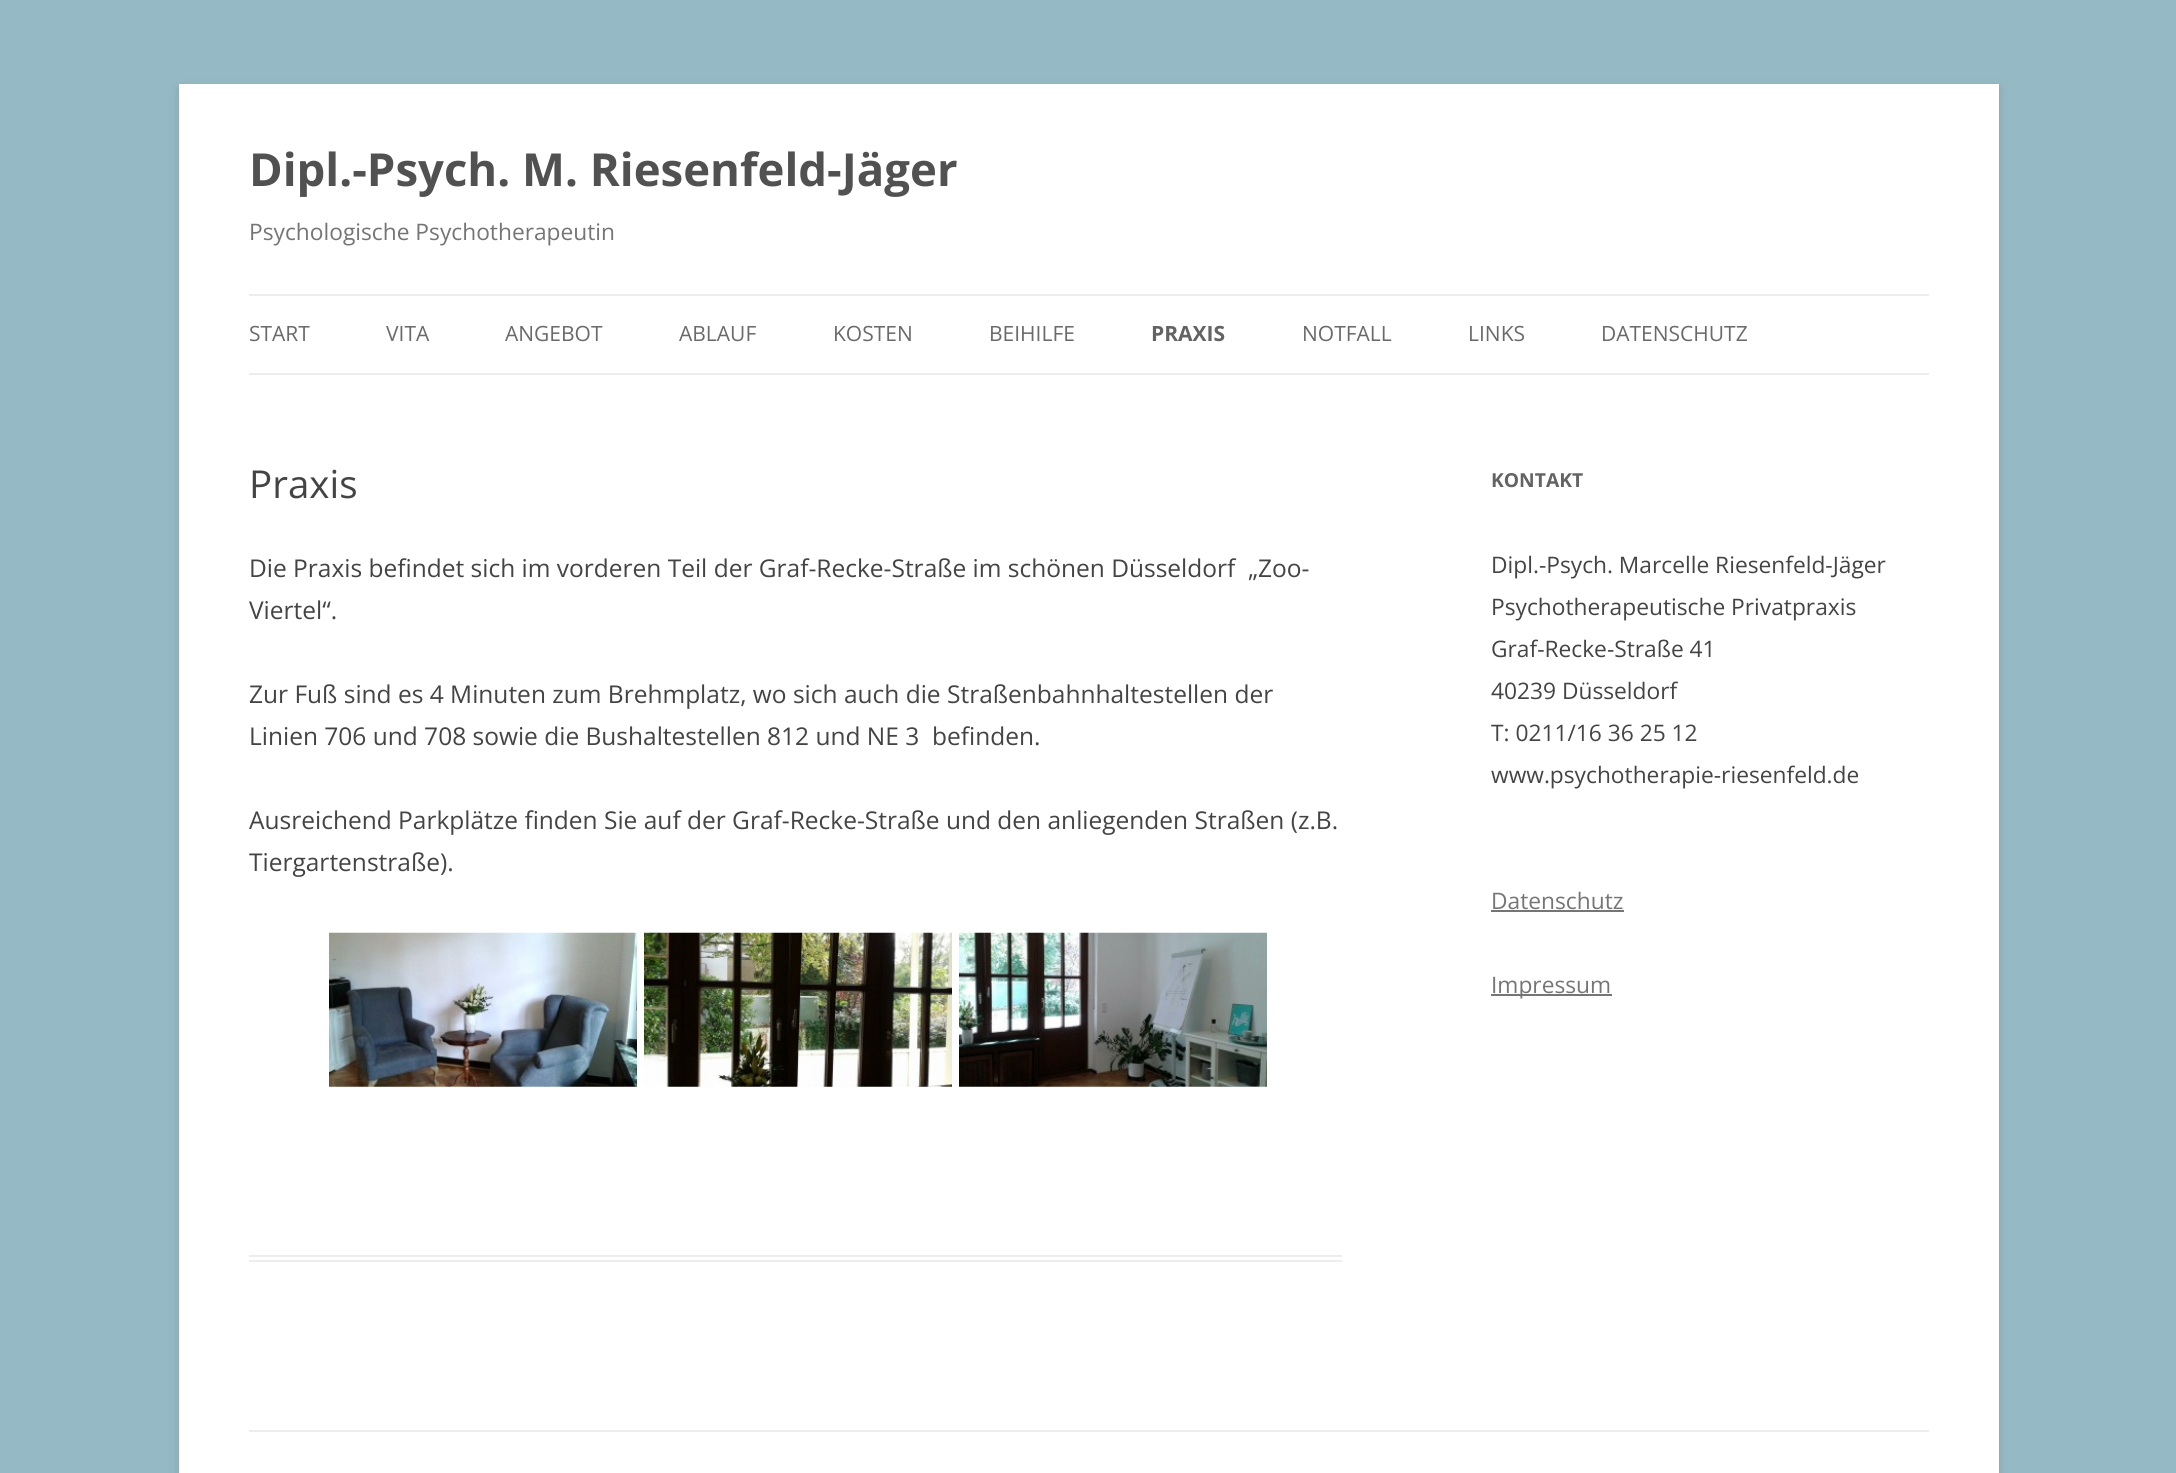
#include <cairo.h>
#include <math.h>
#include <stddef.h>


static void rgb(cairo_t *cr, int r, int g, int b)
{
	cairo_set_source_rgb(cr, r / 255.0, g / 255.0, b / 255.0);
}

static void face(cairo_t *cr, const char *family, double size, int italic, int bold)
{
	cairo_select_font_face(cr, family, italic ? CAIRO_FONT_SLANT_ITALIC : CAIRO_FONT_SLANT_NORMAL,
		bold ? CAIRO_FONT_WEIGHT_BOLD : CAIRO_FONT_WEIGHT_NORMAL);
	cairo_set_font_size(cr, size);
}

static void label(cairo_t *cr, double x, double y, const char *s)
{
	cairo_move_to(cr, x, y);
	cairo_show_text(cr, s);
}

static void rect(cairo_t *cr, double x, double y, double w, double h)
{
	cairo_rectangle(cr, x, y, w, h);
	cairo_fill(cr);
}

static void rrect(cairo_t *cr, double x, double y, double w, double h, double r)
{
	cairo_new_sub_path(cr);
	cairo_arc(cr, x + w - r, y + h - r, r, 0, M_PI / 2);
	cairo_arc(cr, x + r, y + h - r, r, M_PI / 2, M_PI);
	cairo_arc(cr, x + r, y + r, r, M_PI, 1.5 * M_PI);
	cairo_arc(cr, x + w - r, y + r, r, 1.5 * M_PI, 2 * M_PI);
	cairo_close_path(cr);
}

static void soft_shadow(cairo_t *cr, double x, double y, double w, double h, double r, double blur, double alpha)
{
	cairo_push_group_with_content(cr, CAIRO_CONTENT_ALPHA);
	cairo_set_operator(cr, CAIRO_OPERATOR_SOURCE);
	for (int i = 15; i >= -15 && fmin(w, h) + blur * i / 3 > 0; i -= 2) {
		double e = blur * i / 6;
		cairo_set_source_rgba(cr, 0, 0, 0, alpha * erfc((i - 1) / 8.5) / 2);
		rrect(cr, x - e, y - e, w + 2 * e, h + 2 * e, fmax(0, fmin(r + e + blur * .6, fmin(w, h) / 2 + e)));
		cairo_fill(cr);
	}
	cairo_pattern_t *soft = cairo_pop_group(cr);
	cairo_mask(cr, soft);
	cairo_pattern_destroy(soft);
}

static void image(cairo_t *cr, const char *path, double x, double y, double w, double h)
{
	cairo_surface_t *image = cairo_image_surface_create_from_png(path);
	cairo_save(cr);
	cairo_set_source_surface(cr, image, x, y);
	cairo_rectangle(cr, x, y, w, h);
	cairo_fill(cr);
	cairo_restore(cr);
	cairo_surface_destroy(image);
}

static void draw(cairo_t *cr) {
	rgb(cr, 149, 186, 198);
	cairo_paint(cr);
	rgb(cr, 100, 100, 100);
	soft_shadow(cr, 179, 88, 1820, 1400, 0, 5, 0.3);
	rgb(cr, 255, 255, 255);
	rect(cr, 179, 84, 1820, 1389);
	face(cr, "Open Sans", 45.5, 0, 1);
	rgb(cr, 81, 81, 81);
	label(cr, 249, 186, "Dipl.-Psych. M. Riesenfeld-Jäger");
	face(cr, "Open Sans", 22.75, 0, 0);
	rgb(cr, 117, 117, 117);
	label(cr, 249, 240, "Psychologische Psychotherapeutin");
	rgb(cr, 237, 237, 237);
	rect(cr, 249, 294, 1680, 2);
	rect(cr, 249, 373, 1680, 2);
	face(cr, "Open Sans", 21, 0, 0);
	rgb(cr, 106, 106, 106);
	label(cr, 249, 341, "START");
	label(cr, 386, 341, "VITA");
	label(cr, 505, 341, "ANGEBOT");
	label(cr, 679, 341, "ABLAUF");
	label(cr, 833, 341, "KOSTEN");
	label(cr, 989, 341, "BEIHILFE");
	face(cr, "Open Sans", 21, 0, 1);
	rgb(cr, 99, 99, 99);
	label(cr, 1151, 341, "PRAXIS");
	face(cr, "Open Sans", 21, 0, 0);
	rgb(cr, 106, 106, 106);
	label(cr, 1302, 341, "NOTFALL");
	label(cr, 1468, 341, "LINKS");
	label(cr, 1601, 341, "DATENSCHUTZ");
	rgb(cr, 237, 237, 237);
	rect(cr, 249, 1255, 1093, 2);
	rect(cr, 249, 1260, 1093, 2);
	face(cr, "Open Sans", 38.5, 0, 0);
	rgb(cr, 68, 68, 68);
	label(cr, 249, 498, "Praxis");
	face(cr, "Open Sans", 24.5, 0, 0);
	label(cr, 249, 577, "Die Praxis befindet sich im vorderen Teil der Graf-Recke-Straße im schönen Düsseldorf  „Zoo-");
	label(cr, 249, 619, "Viertel“.");
	label(cr, 249, 703, "Zur Fuß sind es 4 Minuten zum Brehmplatz, wo sich auch die Straßenbahnhaltestellen der");
	label(cr, 249, 745, "Linien 706 und 708 sowie die Bushaltestellen 812 und NE 3  befinden.");
	label(cr, 249, 829, "Ausreichend Parkplätze finden Sie auf der Graf-Recke-Straße und den anliegenden Straßen (z.B.");
	label(cr, 249, 871, "Tiergartenstraße).");
	image(cr, "image0.png", 329, 932, 308, 155);
	image(cr, "image1.png", 644, 932, 308, 155);
	image(cr, "image2.png", 959, 932, 308, 155);
	face(cr, "Open Sans", 19.25, 0, 1);
	rgb(cr, 99, 99, 99);
	label(cr, 1491, 487, "KONTAKT");
	face(cr, "Open Sans", 22.75, 0, 0);
	rgb(cr, 68, 68, 68);
	label(cr, 1491, 573, "Dipl.-Psych. Marcelle Riesenfeld-Jäger");
	label(cr, 1491, 615, "Psychotherapeutische Privatpraxis");
	label(cr, 1491, 657, "Graf-Recke-Straße 41");
	label(cr, 1491, 699, "40239 Düsseldorf");
	label(cr, 1491, 741, "T: 0211/16 36 25 12");
	label(cr, 1491, 783, "www.psychotherapie-riesenfeld.de");
	rgb(cr, 117, 117, 117);
	label(cr, 1491, 909, "Datenschutz");
	rect(cr, 1491, 910, 133, 2);
	rect(cr, 1491, 994, 121, 2);
	label(cr, 1491, 993, "Impressum");
	rgb(cr, 237, 237, 237);
	rect(cr, 249, 1430, 1680, 2);
}

int main(void) {
	cairo_surface_t *surface = cairo_image_surface_create(CAIRO_FORMAT_RGB24, 2176, 1473);
	cairo_t *cr = cairo_create(surface);
	cairo_font_options_t *options = cairo_font_options_create();
	cairo_font_options_set_hint_metrics(options, CAIRO_HINT_METRICS_OFF);
	cairo_font_options_set_hint_style(options, CAIRO_HINT_STYLE_NONE);
	cairo_set_font_options(cr, options);
	cairo_set_miter_limit(cr, 4);
	draw(cr);
	cairo_surface_write_to_png(surface, "render.png");
	cairo_font_options_destroy(options);
	cairo_destroy(cr);
	cairo_surface_destroy(surface);
	return 0;
}
